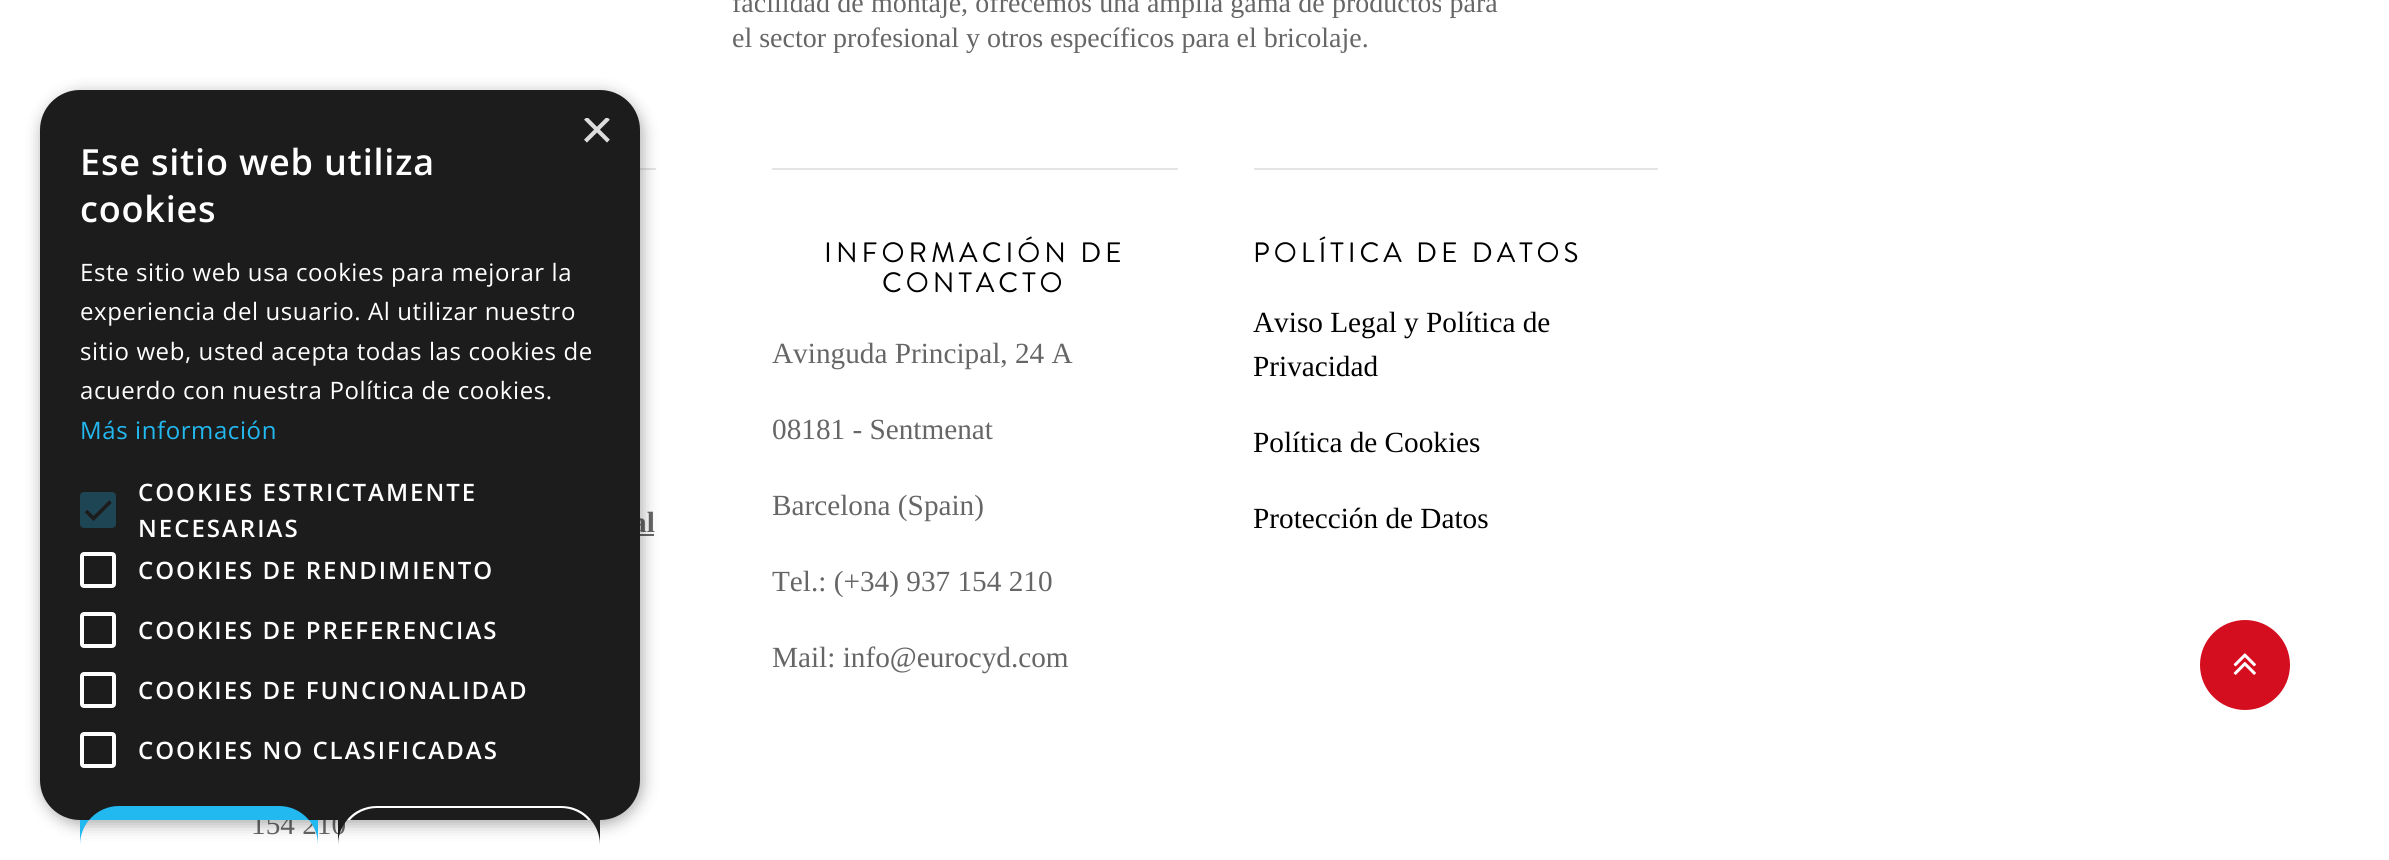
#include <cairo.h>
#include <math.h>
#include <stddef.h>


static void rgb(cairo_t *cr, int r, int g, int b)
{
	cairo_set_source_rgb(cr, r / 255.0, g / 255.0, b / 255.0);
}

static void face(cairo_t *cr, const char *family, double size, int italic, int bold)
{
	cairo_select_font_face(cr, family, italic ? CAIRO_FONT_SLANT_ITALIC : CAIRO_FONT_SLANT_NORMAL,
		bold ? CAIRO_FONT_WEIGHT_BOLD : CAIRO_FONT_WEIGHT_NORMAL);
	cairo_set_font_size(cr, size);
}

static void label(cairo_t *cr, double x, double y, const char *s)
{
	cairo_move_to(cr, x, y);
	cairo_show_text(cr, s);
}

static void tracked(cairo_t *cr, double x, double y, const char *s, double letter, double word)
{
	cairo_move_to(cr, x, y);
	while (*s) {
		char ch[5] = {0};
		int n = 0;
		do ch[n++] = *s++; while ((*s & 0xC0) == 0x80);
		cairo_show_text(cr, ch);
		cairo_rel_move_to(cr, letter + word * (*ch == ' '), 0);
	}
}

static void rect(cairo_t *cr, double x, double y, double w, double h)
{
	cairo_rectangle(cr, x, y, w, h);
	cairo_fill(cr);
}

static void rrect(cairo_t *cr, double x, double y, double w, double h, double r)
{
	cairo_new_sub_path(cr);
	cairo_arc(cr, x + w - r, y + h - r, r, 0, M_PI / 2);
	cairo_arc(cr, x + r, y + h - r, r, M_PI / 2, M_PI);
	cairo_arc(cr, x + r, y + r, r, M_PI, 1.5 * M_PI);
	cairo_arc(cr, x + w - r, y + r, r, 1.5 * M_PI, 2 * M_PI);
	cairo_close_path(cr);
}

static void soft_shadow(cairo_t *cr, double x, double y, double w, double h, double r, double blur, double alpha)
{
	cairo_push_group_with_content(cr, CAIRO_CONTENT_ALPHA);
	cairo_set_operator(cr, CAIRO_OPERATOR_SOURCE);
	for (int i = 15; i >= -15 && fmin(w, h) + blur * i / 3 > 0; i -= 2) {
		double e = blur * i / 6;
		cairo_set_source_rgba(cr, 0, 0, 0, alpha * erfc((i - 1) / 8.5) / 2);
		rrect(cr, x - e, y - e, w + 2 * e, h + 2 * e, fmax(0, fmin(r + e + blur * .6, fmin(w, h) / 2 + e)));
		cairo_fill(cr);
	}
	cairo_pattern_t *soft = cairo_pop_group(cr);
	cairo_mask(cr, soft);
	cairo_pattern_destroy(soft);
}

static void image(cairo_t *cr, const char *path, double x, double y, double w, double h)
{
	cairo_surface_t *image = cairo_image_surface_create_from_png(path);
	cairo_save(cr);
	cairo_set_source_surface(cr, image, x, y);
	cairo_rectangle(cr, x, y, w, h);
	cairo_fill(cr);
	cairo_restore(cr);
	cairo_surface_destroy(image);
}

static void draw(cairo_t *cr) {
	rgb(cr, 255, 255, 255);
	cairo_paint(cr);
	face(cr, "Liberation Serif", 28, 0, 0);
	rgb(cr, 102, 102, 102);
	tracked(cr, 732, 12, "facilidad de montaje, ofrecemos una amplia gama de productos para", 0, 0.25);
	label(cr, 732, 47, "el sector profesional y otros específicos para el bricolaje.");
	rgb(cr, 228, 228, 228);
	rect(cr, 772, 168, 406, 2);
	face(cr, "Brandon Grotesque", 28, 0, 0);
	rgb(cr, 0, 0, 0);
	tracked(cr, 824, 262, "INFORMACIÓN DE", 4, 0);
	tracked(cr, 882, 292, "CONTACTO", 4, 0);
	face(cr, "Liberation Serif", 29.25, 0, 0);
	rgb(cr, 102, 102, 102);
	label(cr, 772, 363, "Avinguda Principal, 24 A");
	label(cr, 772, 439, "08181 - Sentmenat");
	label(cr, 772, 515, "Barcelona (Spain)");
	label(cr, 772, 591, "Tel.: (+34) 937 154 210");
	label(cr, 772, 667, "Mail: info@eurocyd.com");
	rgb(cr, 228, 228, 228);
	rect(cr, 1254, 168, 404, 2);
	face(cr, "Brandon Grotesque", 28, 0, 0);
	rgb(cr, 0, 0, 0);
	tracked(cr, 1253, 262, "POLÍTICA DE DATOS", 4, 0);
	face(cr, "Liberation Serif", 29.25, 0, 0);
	label(cr, 1253, 332, "Aviso Legal y Política de");
	label(cr, 1253, 376, "Privacidad");
	label(cr, 1253, 452, "Política de Cookies");
	label(cr, 1253, 528, "Protección de Datos");
	rgb(cr, 228, 228, 228);
	rect(cr, 640, 168, 16, 2);
	face(cr, "Liberation Serif", 29.25, 0, 1);
	rgb(cr, 102, 102, 102);
	label(cr, 632, 532, "al");
	rect(cr, 640, 534, 14, 2);
	face(cr, "Liberation Serif", 29.25, 0, 0);
	label(cr, 251, 834, "154 210");
	rgb(cr, 212, 14, 30);
	cairo_new_path(cr);
	cairo_arc(cr, 2245, 665, 45, 0, 2 * M_PI);
	cairo_fill(cr);
	image(cr, "image0.png", 2233, 653, 23, 22);
	rgb(cr, 0, 0, 0);
	soft_shadow(cr, 42, 94, 600, 730, 40, 8, 0.35);
	rgb(cr, 28, 28, 28);
	rrect(cr, 40, 90, 600, 730, 40);
	cairo_fill(cr);
	cairo_save(cr);
	cairo_rectangle(cr, 580, 118, 30, 30);
	cairo_clip(cr);
	face(cr, "Liberation Sans", 58, 0, 0);
	rgb(cr, 221, 221, 221);
	label(cr, 580, 149, "×");
	cairo_restore(cr);
	face(cr, "Open Sans SemiBold", 36, 0, 0);
	rgb(cr, 255, 255, 255);
	tracked(cr, 80, 175, "Ese sitio web utiliza", 0.8, 0);
	tracked(cr, 80, 222, "cookies", 0.8, 0);
	face(cr, "Open Sans", 24, 0, 0);
	tracked(cr, 80, 281, "Este sitio web usa cookies para mejorar la", 0.6, 0);
	tracked(cr, 80, 320, "experiencia del usuario. Al utilizar nuestro", 0.6, 0);
	tracked(cr, 80, 360, "sitio web, usted acepta todas las cookies de", 0.6, 0);
	tracked(cr, 80, 399, "acuerdo con nuestra Política de cookies.", 0.6, 0);
	rgb(cr, 34, 184, 240);
	tracked(cr, 80, 439, "Más información", 0.6, 0);
	rgb(cr, 30, 69, 83);
	rrect(cr, 80, 492, 36, 36, 4);
	cairo_fill(cr);
	cairo_new_path(cr);
	cairo_move_to(cr, 86, 511);
	cairo_line_to(cr, 93.5, 518.5);
	cairo_line_to(cr, 110.5, 501.5);
	rgb(cr, 28, 28, 28);
	cairo_set_line_width(cr, 3.6);
	cairo_stroke(cr);
	face(cr, "Open Sans SemiBold", 24, 0, 0);
	rgb(cr, 255, 255, 255);
	tracked(cr, 138, 501, "COOKIES ESTRICTAMENTE", 2, 0);
	tracked(cr, 138, 537, "NECESARIAS", 2, 0);
	rrect(cr, 82, 554, 32, 32, 2);
	cairo_set_line_width(cr, 4);
	cairo_stroke(cr);
	tracked(cr, 138, 579, "COOKIES DE RENDIMIENTO", 2, 0);
	rrect(cr, 82, 614, 32, 32, 2);
	cairo_stroke(cr);
	tracked(cr, 138, 639, "COOKIES DE PREFERENCIAS", 2, 0);
	rrect(cr, 82, 674, 32, 32, 2);
	cairo_stroke(cr);
	tracked(cr, 138, 699, "COOKIES DE FUNCIONALIDAD", 2, 0);
	rrect(cr, 82, 734, 32, 32, 2);
	cairo_stroke(cr);
	tracked(cr, 138, 759, "COOKIES NO CLASIFICADAS", 2, 0);
	rgb(cr, 34, 184, 240);
	cairo_new_path(cr);
	cairo_move_to(cr, 119, 806);
	cairo_line_to(cr, 279, 806);
	cairo_curve_to(cr, 300.5, 806, 318, 823.5, 318, 845);
	cairo_line_to(cr, 318, 820);
	cairo_line_to(cr, 80, 820);
	cairo_line_to(cr, 80, 845);
	cairo_curve_to(cr, 80, 823.5, 97.5, 806, 119, 806);
	cairo_close_path(cr);
	cairo_fill(cr);
	rgb(cr, 28, 28, 28);
	cairo_new_path(cr);
	cairo_move_to(cr, 377, 806);
	cairo_line_to(cr, 561, 806);
	cairo_curve_to(cr, 582.5, 806, 600, 823.5, 600, 845);
	cairo_line_to(cr, 600, 820);
	cairo_line_to(cr, 338, 820);
	cairo_line_to(cr, 338, 845);
	cairo_curve_to(cr, 338, 823.5, 355.5, 806, 377, 806);
	cairo_close_path(cr);
	cairo_fill(cr);
	rgb(cr, 255, 255, 255);
	cairo_new_path(cr);
	cairo_move_to(cr, 377, 806);
	cairo_curve_to(cr, 365, 806, 354, 811, 347, 820);
	cairo_line_to(cr, 350, 820);
	cairo_curve_to(cr, 356, 813, 366, 808, 377, 808);
	cairo_line_to(cr, 561, 808);
	cairo_curve_to(cr, 572, 808, 582, 813, 588, 820);
	cairo_line_to(cr, 591, 820);
	cairo_curve_to(cr, 584, 811, 573, 806, 561, 806);
	cairo_close_path(cr);
	cairo_fill(cr);
}

int main(void) {
	cairo_surface_t *surface = cairo_image_surface_create(CAIRO_FORMAT_RGB24, 2389, 860);
	cairo_t *cr = cairo_create(surface);
	cairo_font_options_t *options = cairo_font_options_create();
	cairo_font_options_set_hint_metrics(options, CAIRO_HINT_METRICS_OFF);
	cairo_font_options_set_hint_style(options, CAIRO_HINT_STYLE_NONE);
	cairo_set_font_options(cr, options);
	cairo_set_miter_limit(cr, 4);
	draw(cr);
	cairo_surface_write_to_png(surface, "render.png");
	cairo_font_options_destroy(options);
	cairo_destroy(cr);
	cairo_surface_destroy(surface);
	return 0;
}
